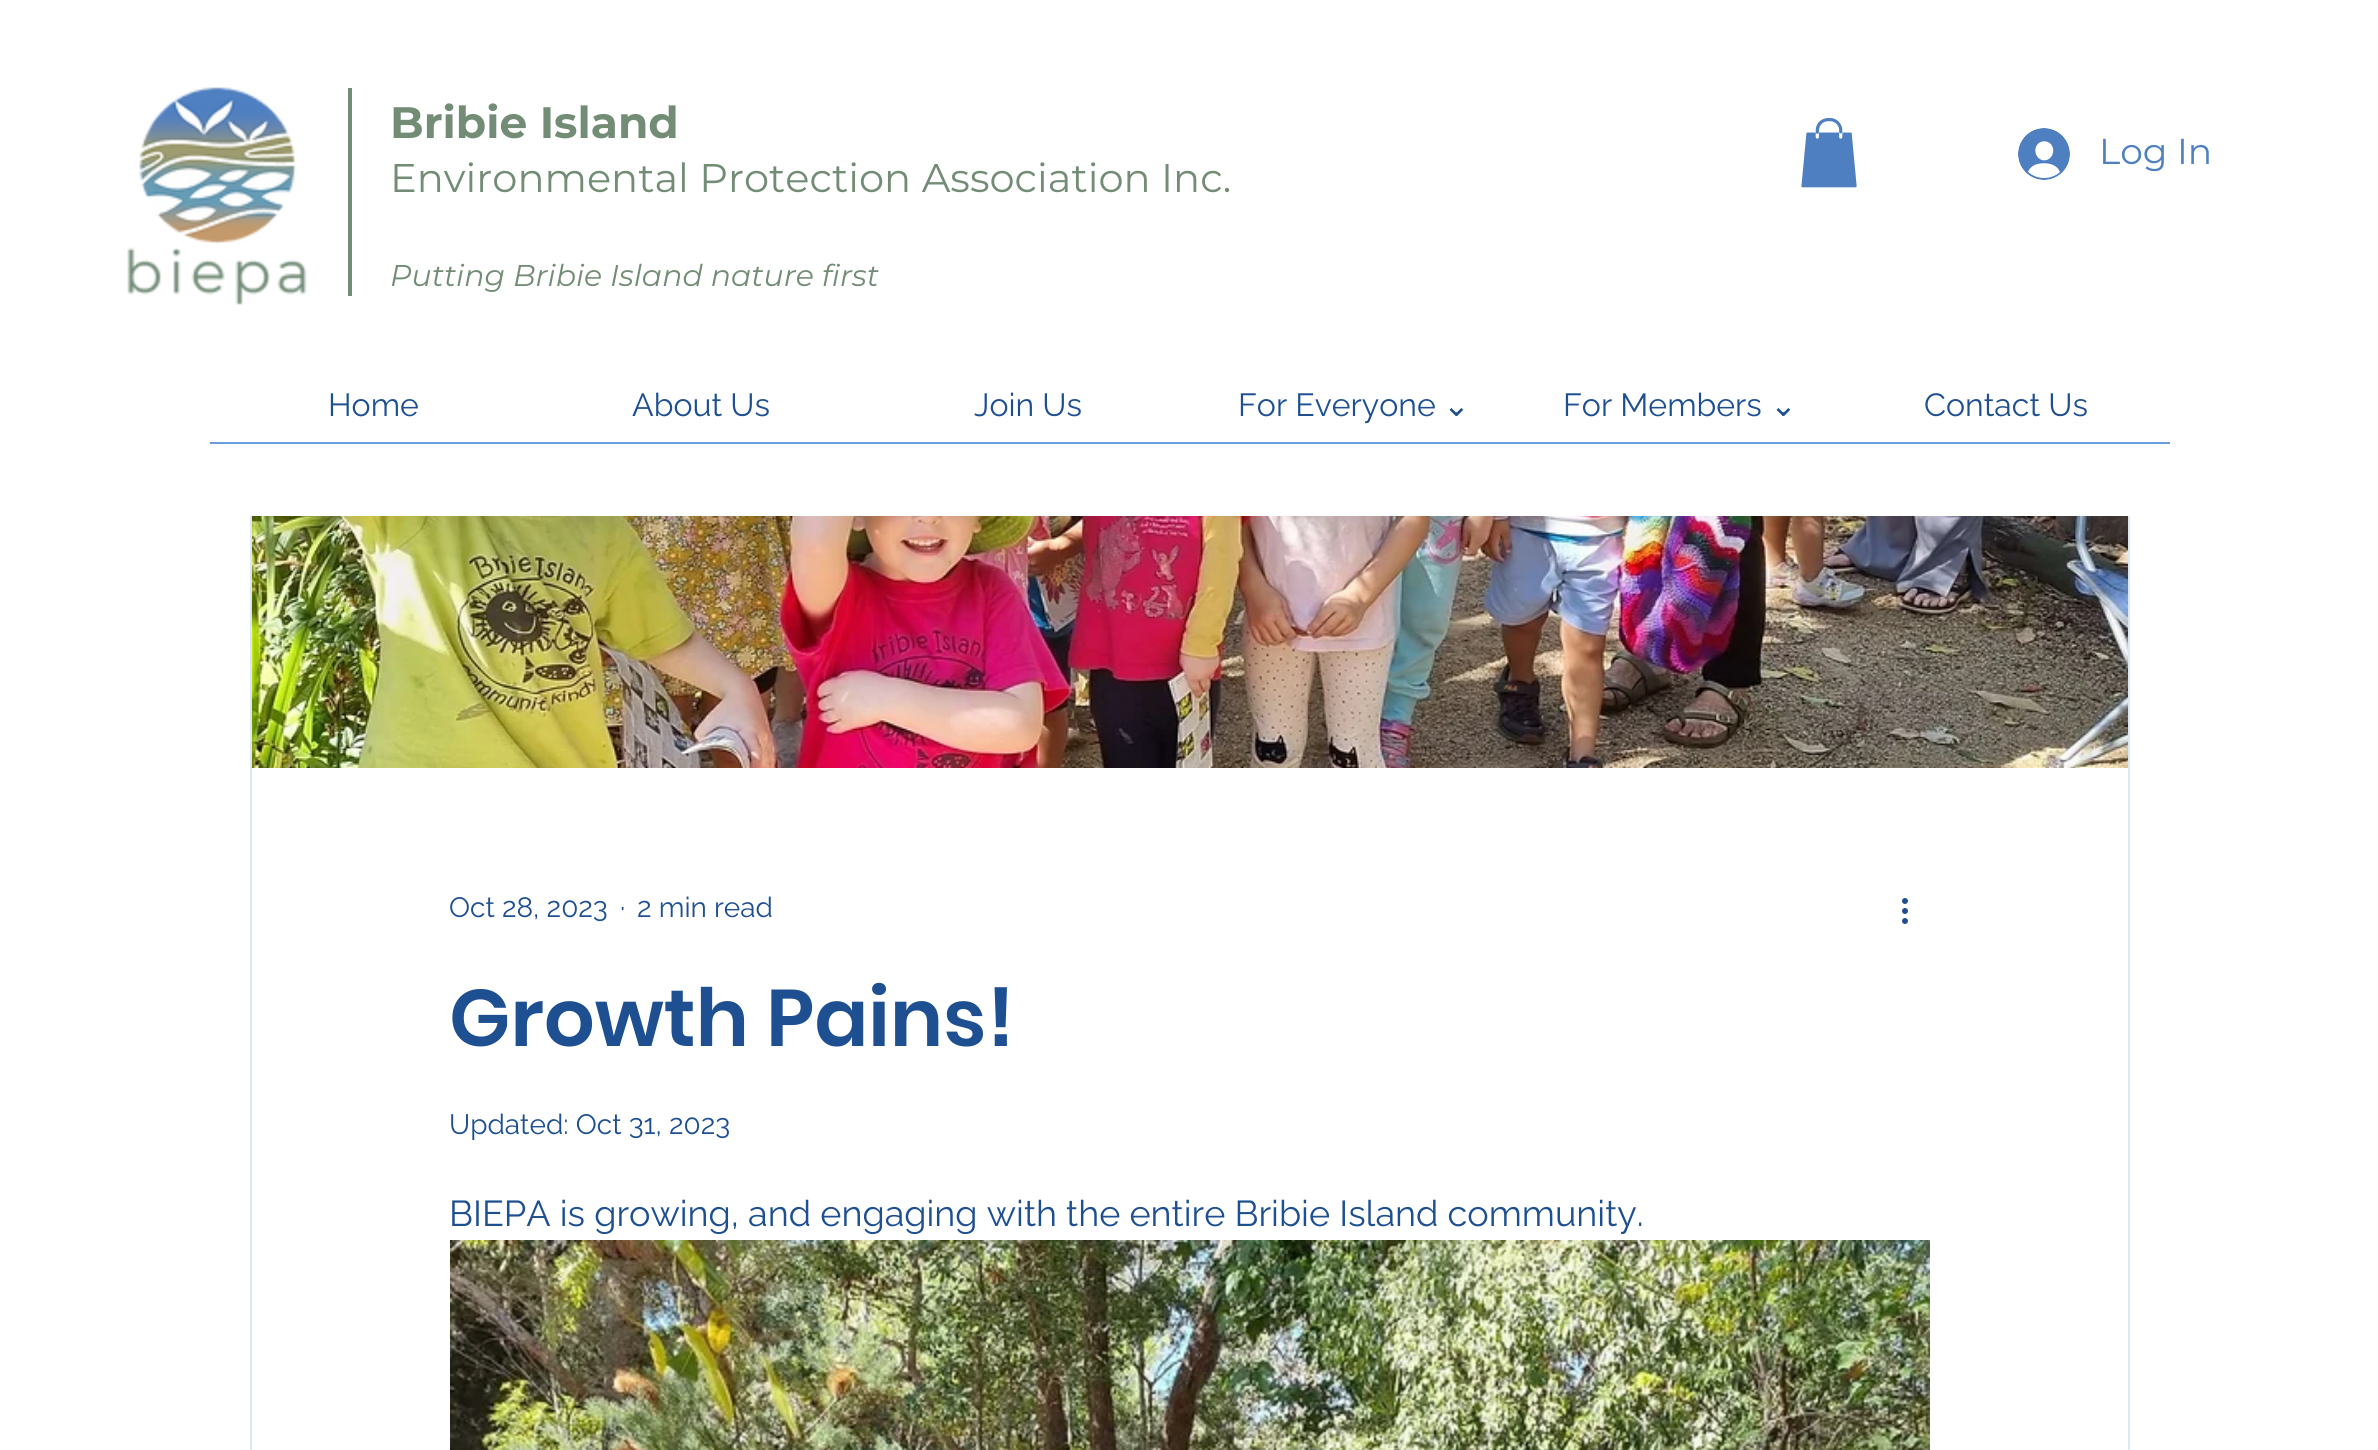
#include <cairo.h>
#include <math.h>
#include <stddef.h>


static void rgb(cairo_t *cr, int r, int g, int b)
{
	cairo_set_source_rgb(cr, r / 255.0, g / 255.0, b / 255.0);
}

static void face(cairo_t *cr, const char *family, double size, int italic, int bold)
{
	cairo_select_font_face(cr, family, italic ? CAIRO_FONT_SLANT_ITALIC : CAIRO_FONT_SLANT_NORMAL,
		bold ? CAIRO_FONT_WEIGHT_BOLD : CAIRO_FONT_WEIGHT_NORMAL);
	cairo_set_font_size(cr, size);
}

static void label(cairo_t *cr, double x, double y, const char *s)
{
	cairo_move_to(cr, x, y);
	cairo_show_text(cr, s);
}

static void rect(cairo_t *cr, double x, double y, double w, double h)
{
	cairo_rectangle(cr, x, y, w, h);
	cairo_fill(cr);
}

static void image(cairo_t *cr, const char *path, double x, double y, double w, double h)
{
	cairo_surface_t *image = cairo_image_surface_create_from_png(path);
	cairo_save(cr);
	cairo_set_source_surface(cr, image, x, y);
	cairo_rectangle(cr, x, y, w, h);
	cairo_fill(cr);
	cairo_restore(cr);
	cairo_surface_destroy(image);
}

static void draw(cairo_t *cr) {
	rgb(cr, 255, 255, 255);
	cairo_paint(cr);
	cairo_rectangle(cr, 251, 67, 1878, 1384);
	rgb(cr, 222, 231, 244);
	cairo_stroke(cr);
	rgb(cr, 255, 255, 255);
	rect(cr, 250, 66, 1880, 450);
	image(cr, "image0.png", 127, 87, 180, 218);
	rgb(cr, 115, 140, 118);
	rect(cr, 348, 88, 4, 208);
	face(cr, "Montserrat", 44, 0, 1);
	label(cr, 390, 138, "Bribie Island");
	face(cr, "Montserrat", 40, 0, 0);
	label(cr, 390, 192, "Environmental Protection Association Inc.");
	face(cr, "Montserrat", 30, 1, 0);
	label(cr, 390, 286, "Putting Bribie Island nature first");
	image(cr, "image1.png", 1801, 118, 56, 70);
	image(cr, "image2.png", 2018, 128, 52, 52);
	face(cr, "Montserrat", 36, 0, 0);
	rgb(cr, 78, 128, 193);
	label(cr, 2099, 164, "Log In");
	face(cr, "Raleway", 32, 0, 0);
	rgb(cr, 29, 79, 145);
	label(cr, 328, 416, "Home");
	label(cr, 632, 416, "About Us");
	label(cr, 974, 416, "Join Us");
	label(cr, 1238, 416, "For Everyone");
	face(cr, "DejaVu Sans", 32, 0, 0);
	label(cr, 1443, 416, "⌄");
	face(cr, "Raleway", 32, 0, 0);
	label(cr, 1563, 416, "For Members");
	face(cr, "DejaVu Sans", 32, 0, 0);
	label(cr, 1770, 416, "⌄");
	face(cr, "Raleway", 32, 0, 0);
	label(cr, 1924, 416, "Contact Us");
	rgb(cr, 105, 157, 224);
	rect(cr, 210, 442, 1960, 2);
	image(cr, "image3.png", 252, 516, 1876, 252);
	face(cr, "Raleway", 28, 0, 0);
	rgb(cr, 29, 79, 145);
	label(cr, 449, 917, "Oct 28, 2023");
	label(cr, 620, 917, "·");
	label(cr, 637, 917, "2 min read");
	image(cr, "image4.png", 1902, 898, 6, 26);
	face(cr, "Poppins SemiBold", 80, 0, 0);
	label(cr, 449, 1046, "Growth Pains!");
	face(cr, "Raleway", 28, 0, 0);
	label(cr, 449, 1134, "Updated: Oct 31, 2023");
	face(cr, "Raleway", 36, 0, 0);
	label(cr, 449, 1226, "BIEPA is growing, and engaging with the entire Bribie Island community.");
	image(cr, "image5.png", 450, 1240, 1480, 210);
}

int main(void) {
	cairo_surface_t *surface = cairo_image_surface_create(CAIRO_FORMAT_RGB24, 2378, 1450);
	cairo_t *cr = cairo_create(surface);
	cairo_font_options_t *options = cairo_font_options_create();
	cairo_font_options_set_hint_metrics(options, CAIRO_HINT_METRICS_OFF);
	cairo_font_options_set_hint_style(options, CAIRO_HINT_STYLE_NONE);
	cairo_set_font_options(cr, options);
	cairo_set_miter_limit(cr, 4);
	draw(cr);
	cairo_surface_write_to_png(surface, "render.png");
	cairo_font_options_destroy(options);
	cairo_destroy(cr);
	cairo_surface_destroy(surface);
	return 0;
}
